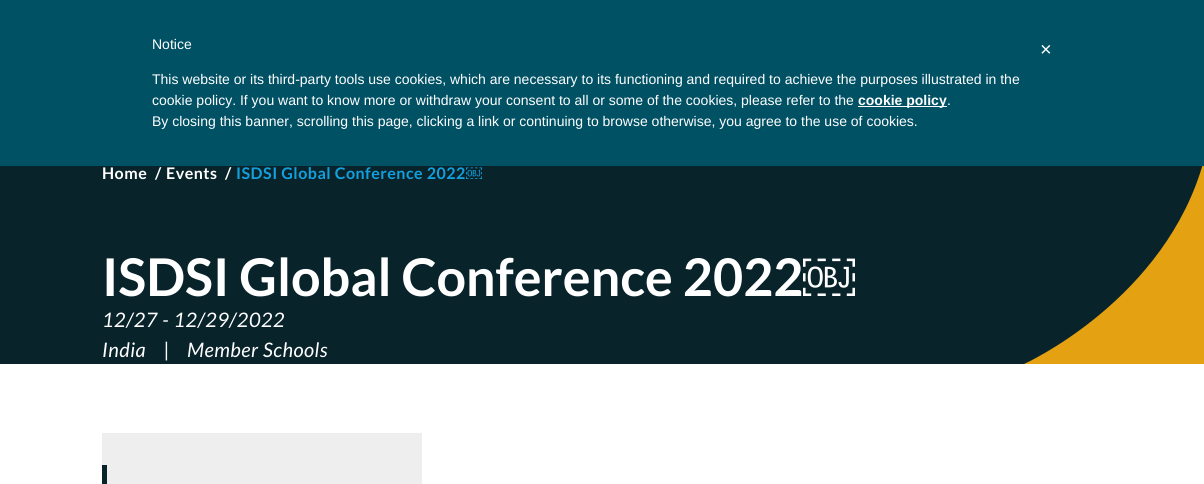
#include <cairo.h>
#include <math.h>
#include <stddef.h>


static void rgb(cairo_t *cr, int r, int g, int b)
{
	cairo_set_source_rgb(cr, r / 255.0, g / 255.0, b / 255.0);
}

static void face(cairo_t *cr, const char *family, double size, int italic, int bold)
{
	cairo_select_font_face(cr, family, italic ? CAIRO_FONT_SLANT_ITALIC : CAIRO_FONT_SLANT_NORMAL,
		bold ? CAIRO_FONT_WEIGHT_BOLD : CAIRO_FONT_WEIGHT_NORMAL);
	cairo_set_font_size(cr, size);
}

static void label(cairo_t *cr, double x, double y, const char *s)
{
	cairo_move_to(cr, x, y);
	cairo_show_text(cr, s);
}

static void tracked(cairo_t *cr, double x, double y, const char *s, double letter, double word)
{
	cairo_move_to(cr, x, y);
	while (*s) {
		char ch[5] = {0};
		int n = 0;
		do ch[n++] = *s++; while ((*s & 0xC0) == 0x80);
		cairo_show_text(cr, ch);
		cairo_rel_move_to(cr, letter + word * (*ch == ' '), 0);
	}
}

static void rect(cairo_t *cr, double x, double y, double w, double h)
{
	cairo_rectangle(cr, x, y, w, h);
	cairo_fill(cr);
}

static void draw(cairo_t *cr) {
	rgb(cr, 255, 255, 255);
	cairo_paint(cr);
	rgb(cr, 9, 35, 43);
	rect(cr, 0, 166, 1203, 198);
	rgb(cr, 228, 162, 19);
	cairo_new_path(cr);
	cairo_move_to(cr, 1024, 364);
	cairo_curve_to(cr, 1024, 364, 1166, 300, 1204, 160);
	cairo_line_to(cr, 1204, 364);
	cairo_close_path(cr);
	cairo_fill(cr);
	rgb(cr, 1, 81, 101);
	rect(cr, 0, 0, 1204, 166);
	face(cr, "Liberation Sans", 14, 0, 0);
	rgb(cr, 255, 255, 255);
	label(cr, 152, 49, "Notice");
	label(cr, 152, 84, "This website or its third-party tools use cookies, which are necessary to its functioning and required to achieve the purposes illustrated in the");
	label(cr, 152, 105, "cookie policy. If you want to know more or withdraw your consent to all or some of the cookies, please refer to the");
	rect(cr, 858, 106, 89, 1);
	face(cr, "Liberation Sans", 14, 0, 1);
	label(cr, 858, 105, "cookie policy");
	face(cr, "Liberation Sans", 14, 0, 0);
	label(cr, 947, 105, ".");
	label(cr, 152, 126, "By closing this banner, scrolling this page, clicking a link or continuing to browse otherwise, you agree to the use of cookies.");
	face(cr, "Liberation Sans", 20, 0, 0);
	label(cr, 1040, 56, "×");
	face(cr, "Lato", 16, 0, 1);
	tracked(cr, 102, 179, "Home", 0.5, 0);
	tracked(cr, 155, 179, "/", 0.5, 0);
	tracked(cr, 166, 179, "Events", 0.5, 0);
	tracked(cr, 225, 179, "/", 0.5, 0);
	rgb(cr, 16, 161, 222);
	tracked(cr, 236, 179, "ISDSI Global Conference 2022", 0.5, 0);
	face(cr, "Liberation Sans", 16, 0, 1);
	tracked(cr, 466, 179, "￼", 0.5, 0);
	face(cr, "Lato", 52, 0, 1);
	rgb(cr, 255, 255, 255);
	label(cr, 102, 296, "ISDSI Global Conference 2022");
	face(cr, "Liberation Sans", 52, 0, 1);
	label(cr, 803, 296, "￼");
	face(cr, "Lato", 20, 1, 0);
	tracked(cr, 102, 327, "12/27 - 12/29/2022", 0.5, 0);
	tracked(cr, 102, 357, "India", 0.5, 0);
	tracked(cr, 164, 357, "|", 0.5, 0);
	tracked(cr, 187, 357, "Member Schools", 0.5, 0);
	rgb(cr, 238, 238, 238);
	rect(cr, 102, 433, 320, 51);
	rgb(cr, 9, 35, 43);
	rect(cr, 102, 465, 5, 19);
}

int main(void) {
	cairo_surface_t *surface = cairo_image_surface_create(CAIRO_FORMAT_RGB24, 1204, 484);
	cairo_t *cr = cairo_create(surface);
	cairo_font_options_t *options = cairo_font_options_create();
	cairo_font_options_set_hint_metrics(options, CAIRO_HINT_METRICS_OFF);
	cairo_font_options_set_hint_style(options, CAIRO_HINT_STYLE_NONE);
	cairo_set_font_options(cr, options);
	cairo_set_miter_limit(cr, 4);
	draw(cr);
	cairo_surface_write_to_png(surface, "render.png");
	cairo_font_options_destroy(options);
	cairo_destroy(cr);
	cairo_surface_destroy(surface);
	return 0;
}
